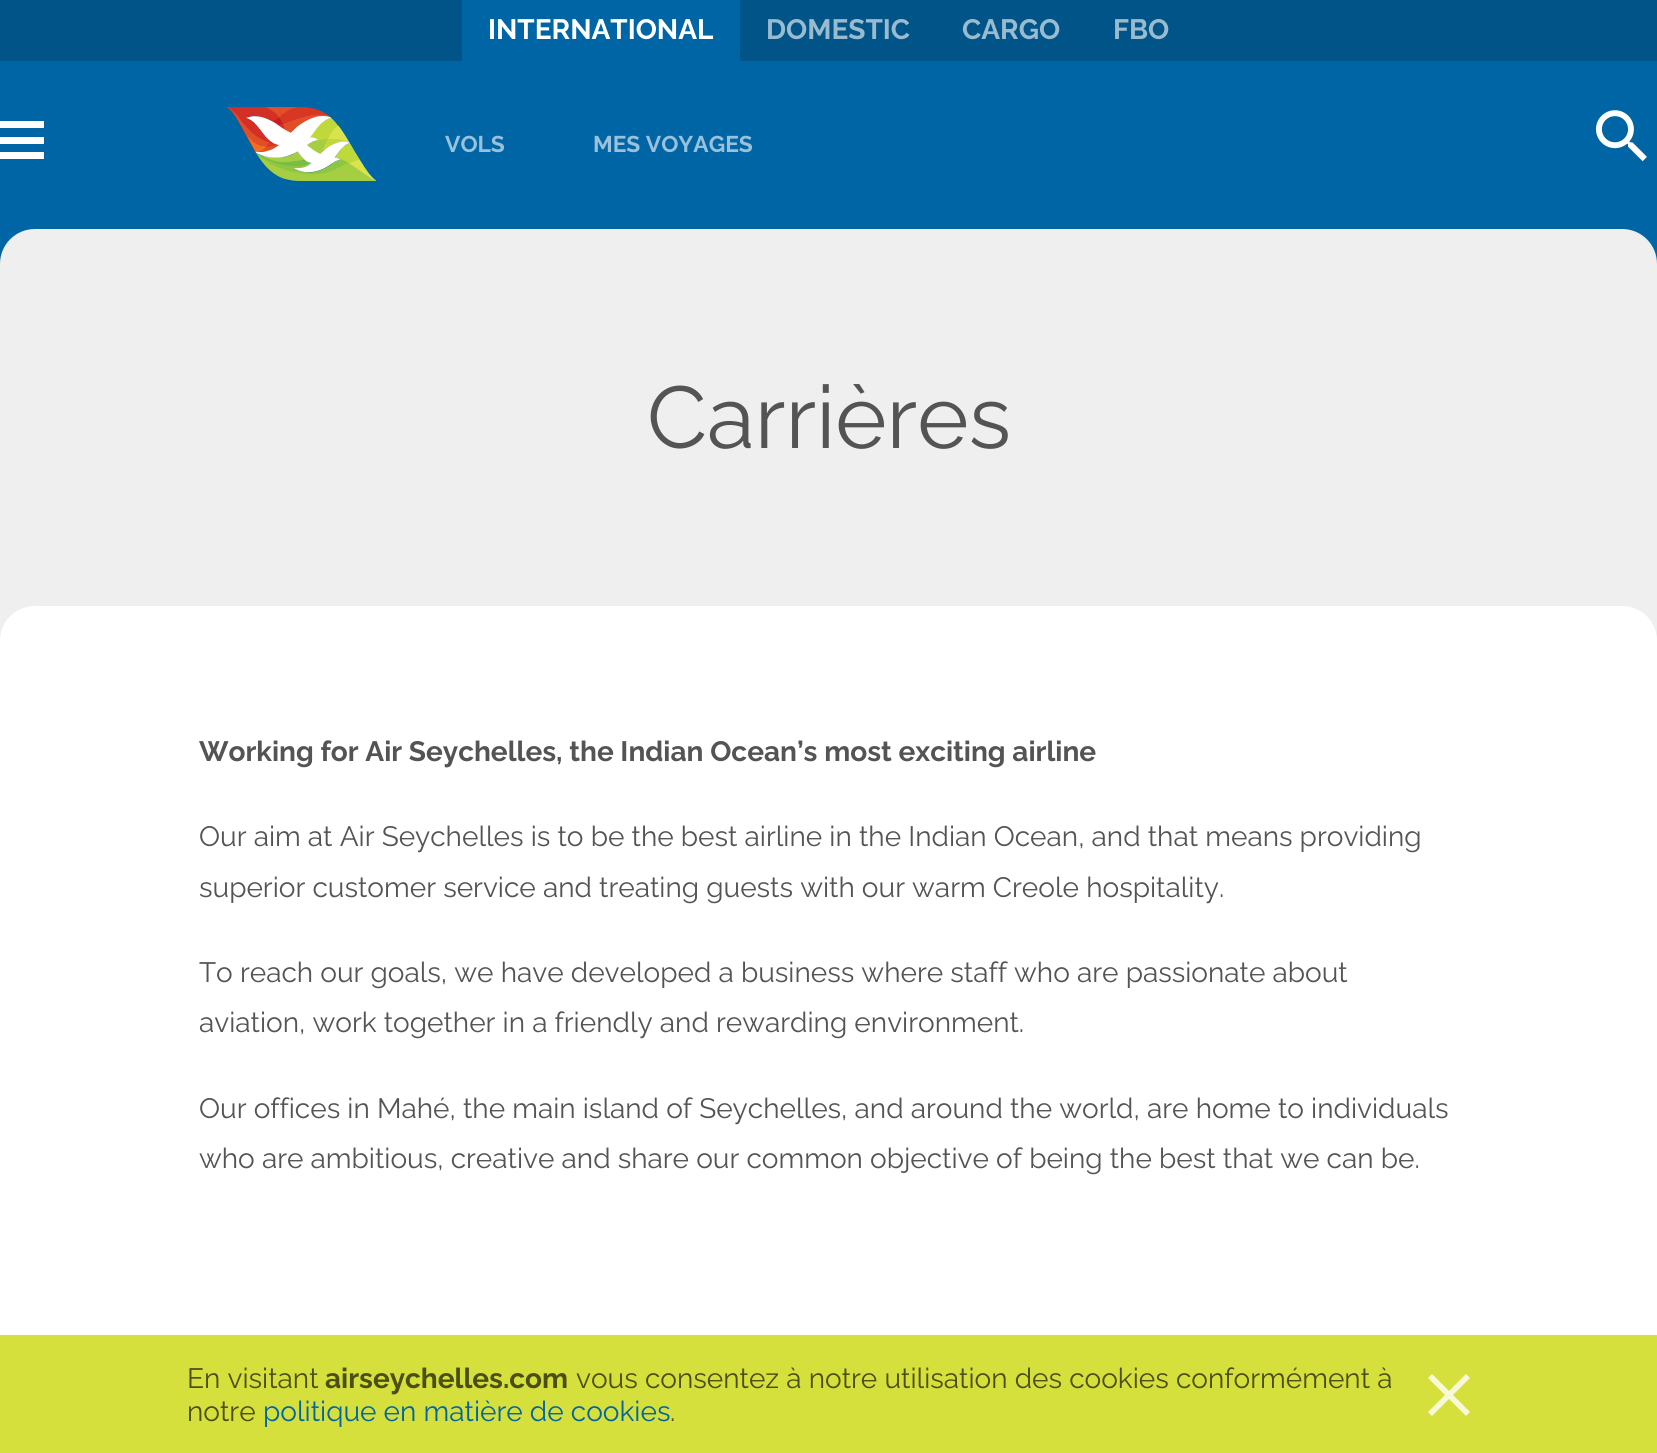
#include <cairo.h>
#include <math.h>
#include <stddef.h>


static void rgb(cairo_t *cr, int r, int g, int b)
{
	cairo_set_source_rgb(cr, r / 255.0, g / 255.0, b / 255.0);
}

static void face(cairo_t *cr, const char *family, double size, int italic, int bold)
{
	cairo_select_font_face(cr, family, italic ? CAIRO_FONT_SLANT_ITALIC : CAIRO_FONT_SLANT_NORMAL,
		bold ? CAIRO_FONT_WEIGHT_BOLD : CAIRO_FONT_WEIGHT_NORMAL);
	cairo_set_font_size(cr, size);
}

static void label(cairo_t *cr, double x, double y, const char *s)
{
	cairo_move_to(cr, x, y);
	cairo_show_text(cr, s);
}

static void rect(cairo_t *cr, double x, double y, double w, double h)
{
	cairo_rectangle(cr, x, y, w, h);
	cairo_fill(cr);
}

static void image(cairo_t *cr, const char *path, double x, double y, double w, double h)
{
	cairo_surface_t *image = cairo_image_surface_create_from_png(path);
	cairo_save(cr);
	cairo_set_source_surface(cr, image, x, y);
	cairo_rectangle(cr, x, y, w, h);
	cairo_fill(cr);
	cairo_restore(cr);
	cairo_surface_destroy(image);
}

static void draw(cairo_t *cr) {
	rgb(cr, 255, 255, 255);
	cairo_paint(cr);
	rgb(cr, 0, 101, 164);
	rect(cr, 0, 61, 1657, 203);
	rgb(cr, 0, 84, 136);
	rect(cr, 0, 0, 1657, 61);
	rgb(cr, 0, 101, 164);
	rect(cr, 462, 0, 278, 61);
	face(cr, "Raleway", 28, 0, 1);
	rgb(cr, 255, 255, 255);
	label(cr, 488, 39, "INTERNATIONAL");
	rgb(cr, 153, 187, 207);
	label(cr, 766, 39, "DOMESTIC");
	label(cr, 962, 39, "CARGO");
	label(cr, 1113, 39, "FBO");
	rgb(cr, 255, 255, 255);
	rect(cr, 0, 121, 44, 7);
	rect(cr, 0, 137, 44, 7);
	rect(cr, 0, 152, 44, 7);
	image(cr, "image0.png", 226, 107, 150, 74);
	face(cr, "Raleway", 22.75, 0, 1);
	rgb(cr, 153, 193, 219);
	label(cr, 445, 152, "VOLS");
	label(cr, 593, 152, "MES VOYAGES");
	image(cr, "image1.png", 1596, 110, 51, 52);
	rgb(cr, 239, 239, 239);
	cairo_new_path(cr);
	cairo_move_to(cr, 35, 229);
	cairo_line_to(cr, 1622, 229);
	cairo_curve_to(cr, 1641.5, 229, 1657, 244.5, 1657, 264);
	cairo_line_to(cr, 1657, 676);
	cairo_line_to(cr, 0, 676);
	cairo_line_to(cr, 0, 264);
	cairo_curve_to(cr, 0, 244.5, 15.5, 229, 35, 229);
	cairo_close_path(cr);
	cairo_fill(cr);
	face(cr, "Raleway", 87.5, 0, 0);
	rgb(cr, 84, 84, 84);
	label(cr, 647, 448, "Carrières");
	rgb(cr, 255, 255, 255);
	cairo_new_path(cr);
	cairo_move_to(cr, 35, 606);
	cairo_line_to(cr, 1622, 606);
	cairo_curve_to(cr, 1641.5, 606, 1657, 621.5, 1657, 641);
	cairo_line_to(cr, 1657, 1271);
	cairo_line_to(cr, 0, 1271);
	cairo_line_to(cr, 0, 641);
	cairo_curve_to(cr, 0, 621.5, 15.5, 606, 35, 606);
	cairo_close_path(cr);
	cairo_fill(cr);
	face(cr, "Raleway", 28, 0, 1);
	rgb(cr, 84, 84, 84);
	label(cr, 199, 761, "Working for Air Seychelles, the Indian Ocean’s most exciting airline");
	face(cr, "Raleway", 28, 0, 0);
	label(cr, 199, 846, "Our aim at Air Seychelles is to be the best airline in the Indian Ocean, and that means providing");
	label(cr, 199, 897, "superior customer service and treating guests with our warm Creole hospitality.");
	label(cr, 199, 982, "To reach our goals, we have developed a business where staff who are passionate about");
	label(cr, 199, 1032, "aviation, work together in a friendly and rewarding environment.");
	label(cr, 199, 1118, "Our offices in Mahé, the main island of Seychelles, and around the world, are home to individuals");
	label(cr, 199, 1168, "who are ambitious, creative and share our common objective of being the best that we can be.");
	rgb(cr, 213, 224, 60);
	rect(cr, 0, 1335, 1657, 118);
	rgb(cr, 75, 78, 21);
	label(cr, 187, 1388, "En visitant");
	face(cr, "Raleway", 28, 0, 1);
	label(cr, 325, 1388, "airseychelles.com");
	face(cr, "Raleway", 28, 0, 0);
	label(cr, 576, 1388, "vous consentez à notre utilisation des cookies conformément à");
	label(cr, 187, 1421, "notre");
	rgb(cr, 0, 101, 164);
	label(cr, 263, 1421, "politique en matière de cookies");
	rgb(cr, 75, 78, 21);
	label(cr, 670, 1421, ".");
	rgb(cr, 247, 249, 216);
	cairo_new_path(cr);
	cairo_move_to(cr, 1470, 1378);
	cairo_line_to(cr, 1466, 1374);
	cairo_line_to(cr, 1449, 1391);
	cairo_line_to(cr, 1432, 1374);
	cairo_line_to(cr, 1428, 1378);
	cairo_line_to(cr, 1445, 1395);
	cairo_line_to(cr, 1428, 1412);
	cairo_line_to(cr, 1432, 1416);
	cairo_line_to(cr, 1449, 1399);
	cairo_line_to(cr, 1466, 1416);
	cairo_line_to(cr, 1470, 1412);
	cairo_line_to(cr, 1453, 1395);
	cairo_close_path(cr);
	cairo_fill(cr);
}

int main(void) {
	cairo_surface_t *surface = cairo_image_surface_create(CAIRO_FORMAT_RGB24, 1657, 1453);
	cairo_t *cr = cairo_create(surface);
	cairo_font_options_t *options = cairo_font_options_create();
	cairo_font_options_set_hint_metrics(options, CAIRO_HINT_METRICS_OFF);
	cairo_font_options_set_hint_style(options, CAIRO_HINT_STYLE_NONE);
	cairo_set_font_options(cr, options);
	cairo_set_miter_limit(cr, 4);
	draw(cr);
	cairo_surface_write_to_png(surface, "render.png");
	cairo_font_options_destroy(options);
	cairo_destroy(cr);
	cairo_surface_destroy(surface);
	return 0;
}
